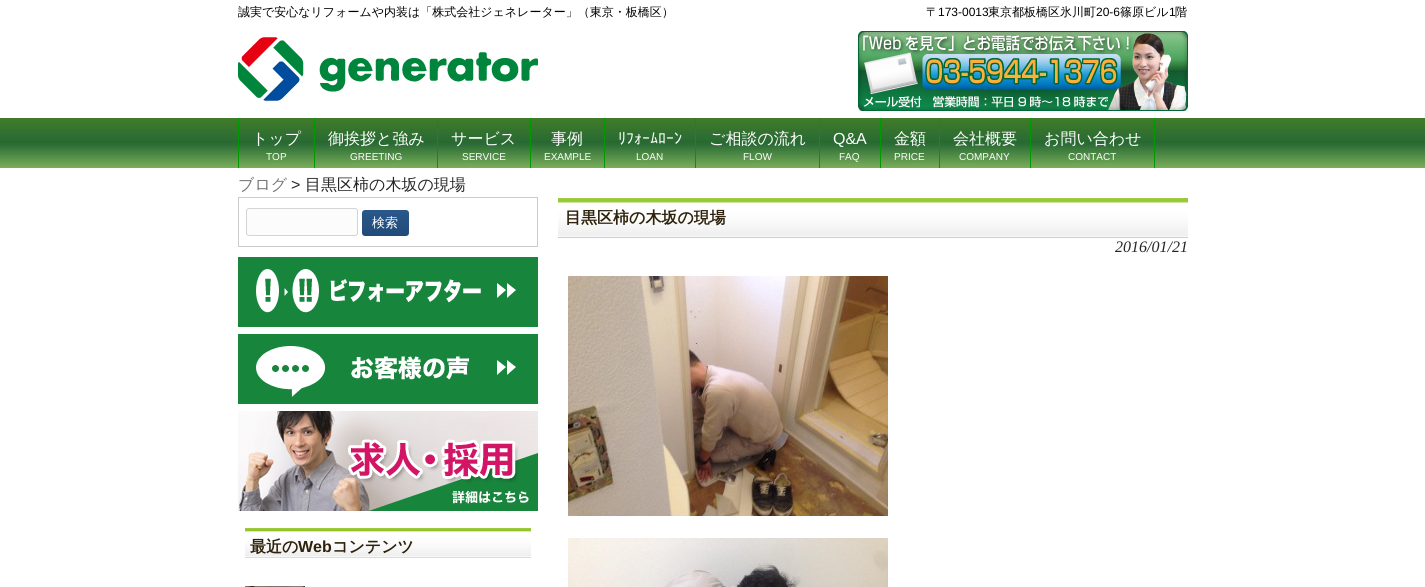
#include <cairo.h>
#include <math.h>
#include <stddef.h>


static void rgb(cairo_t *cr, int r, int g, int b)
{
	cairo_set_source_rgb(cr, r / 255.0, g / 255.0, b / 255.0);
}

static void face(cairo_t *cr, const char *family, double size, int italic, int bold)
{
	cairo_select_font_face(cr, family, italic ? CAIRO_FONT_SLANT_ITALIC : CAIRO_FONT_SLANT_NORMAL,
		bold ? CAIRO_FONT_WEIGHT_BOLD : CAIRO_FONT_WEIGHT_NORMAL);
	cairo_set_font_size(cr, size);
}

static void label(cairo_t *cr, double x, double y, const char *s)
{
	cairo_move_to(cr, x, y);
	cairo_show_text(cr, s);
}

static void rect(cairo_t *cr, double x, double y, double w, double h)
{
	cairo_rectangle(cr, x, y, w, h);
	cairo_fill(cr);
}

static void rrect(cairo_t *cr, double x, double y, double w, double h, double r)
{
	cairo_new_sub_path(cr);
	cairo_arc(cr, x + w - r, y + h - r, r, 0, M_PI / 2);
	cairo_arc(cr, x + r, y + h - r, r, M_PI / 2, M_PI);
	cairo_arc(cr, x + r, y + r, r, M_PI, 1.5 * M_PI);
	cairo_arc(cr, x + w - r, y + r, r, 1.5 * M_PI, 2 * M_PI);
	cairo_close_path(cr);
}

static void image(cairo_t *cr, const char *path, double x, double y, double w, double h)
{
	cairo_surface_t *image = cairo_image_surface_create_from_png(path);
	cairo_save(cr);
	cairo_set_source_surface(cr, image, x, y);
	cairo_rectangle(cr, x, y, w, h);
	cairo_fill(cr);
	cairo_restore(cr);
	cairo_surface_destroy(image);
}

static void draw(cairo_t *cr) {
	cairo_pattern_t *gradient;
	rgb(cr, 255, 255, 255);
	cairo_paint(cr);
	face(cr, "WenQuanYi Zen Hei Medium", 12, 0, 0);
	rgb(cr, 0, 0, 0);
	label(cr, 238, 16, "誠実で安心なリフォームや内装は「株式会社ジェネレーター」（東京・板橋区）");
	label(cr, 926, 16, "〒");
	face(cr, "Liberation Sans", 12, 0, 0);
	label(cr, 938, 16, "173-0013");
	face(cr, "WenQuanYi Zen Hei Medium", 12, 0, 0);
	label(cr, 988, 16, "東京都板橋区氷川町");
	face(cr, "Liberation Sans", 12, 0, 0);
	label(cr, 1096, 16, "20-6");
	face(cr, "WenQuanYi Zen Hei Medium", 12, 0, 0);
	label(cr, 1120, 16, "篠原ビル");
	face(cr, "Liberation Sans", 12, 0, 0);
	label(cr, 1169, 16, "1");
	face(cr, "WenQuanYi Zen Hei Medium", 12, 0, 0);
	label(cr, 1175, 16, "階");
	image(cr, "image0.png", 238, 37, 300, 64);
	image(cr, "image1.png", 858, 31, 330, 80);
	image(cr, "image2.png", 0, 118, 1425, 50);
	rgb(cr, 0, 153, 0);
	rect(cr, 238, 118, 1, 50);
	rect(cr, 314, 118, 1, 50);
	image(cr, "image3.png", 239, 128, 75, 38);
	face(cr, "WenQuanYi Zen Hei Medium", 16, 0, 0);
	rgb(cr, 255, 255, 255);
	label(cr, 252, 144, "トップ");
	face(cr, "Liberation Sans", 10, 0, 0);
	label(cr, 266, 160, "TOP");
	rgb(cr, 0, 153, 0);
	rect(cr, 437, 118, 1, 50);
	image(cr, "image4.png", 436, 128, 1, 38);
	face(cr, "WenQuanYi Zen Hei Medium", 16, 0, 0);
	rgb(cr, 255, 255, 255);
	label(cr, 328, 144, "御挨拶と強み");
	face(cr, "Liberation Sans", 10, 0, 0);
	label(cr, 350, 160, "GREETING");
	rgb(cr, 0, 153, 0);
	rect(cr, 530, 118, 1, 50);
	image(cr, "image4.png", 529, 128, 1, 38);
	face(cr, "WenQuanYi Zen Hei Medium", 16, 0, 0);
	rgb(cr, 255, 255, 255);
	label(cr, 451, 144, "サービス");
	face(cr, "Liberation Sans", 10, 0, 0);
	label(cr, 462, 160, "SERVICE");
	rgb(cr, 0, 153, 0);
	rect(cr, 604, 118, 1, 50);
	image(cr, "image4.png", 603, 128, 1, 38);
	face(cr, "WenQuanYi Zen Hei Medium", 16, 0, 0);
	rgb(cr, 255, 255, 255);
	label(cr, 551, 144, "事例");
	face(cr, "Liberation Sans", 10, 0, 0);
	label(cr, 544, 160, "EXAMPLE");
	rgb(cr, 0, 153, 0);
	rect(cr, 695, 118, 1, 50);
	image(cr, "image4.png", 694, 128, 1, 38);
	face(cr, "IPAPGothic", 16, 0, 0);
	rgb(cr, 255, 255, 255);
	label(cr, 618, 144, "ﾘﾌｫｰﾑﾛｰﾝ");
	face(cr, "Liberation Sans", 10, 0, 0);
	label(cr, 636, 160, "LOAN");
	rgb(cr, 0, 153, 0);
	rect(cr, 819, 118, 1, 50);
	image(cr, "image4.png", 818, 128, 1, 38);
	face(cr, "WenQuanYi Zen Hei Medium", 16, 0, 0);
	rgb(cr, 255, 255, 255);
	label(cr, 709, 144, "ご相談の流れ");
	face(cr, "Liberation Sans", 10, 0, 0);
	label(cr, 743, 160, "FLOW");
	rgb(cr, 0, 153, 0);
	rect(cr, 880, 118, 1, 50);
	image(cr, "image4.png", 879, 128, 1, 38);
	face(cr, "Liberation Sans", 16, 0, 0);
	rgb(cr, 255, 255, 255);
	label(cr, 833, 144, "Q&A");
	face(cr, "Liberation Sans", 10, 0, 0);
	label(cr, 839, 160, "FAQ");
	rgb(cr, 0, 153, 0);
	rect(cr, 939, 118, 1, 50);
	image(cr, "image4.png", 938, 128, 1, 38);
	face(cr, "WenQuanYi Zen Hei Medium", 16, 0, 0);
	rgb(cr, 255, 255, 255);
	label(cr, 894, 144, "金額");
	face(cr, "Liberation Sans", 10, 0, 0);
	label(cr, 894, 160, "PRICE");
	rgb(cr, 0, 153, 0);
	rect(cr, 1030, 118, 1, 50);
	image(cr, "image4.png", 1029, 128, 1, 38);
	face(cr, "WenQuanYi Zen Hei Medium", 16, 0, 0);
	rgb(cr, 255, 255, 255);
	label(cr, 953, 144, "会社概要");
	face(cr, "Liberation Sans", 10, 0, 0);
	label(cr, 959, 160, "COMPANY");
	rgb(cr, 0, 153, 0);
	rect(cr, 1154, 118, 1, 50);
	image(cr, "image4.png", 1153, 128, 1, 38);
	face(cr, "WenQuanYi Zen Hei Medium", 16, 0, 0);
	rgb(cr, 255, 255, 255);
	label(cr, 1044, 144, "お問い合わせ");
	face(cr, "Liberation Sans", 10, 0, 0);
	label(cr, 1068, 160, "CONTACT");
	face(cr, "WenQuanYi Zen Hei Medium", 16, 0, 0);
	rgb(cr, 119, 119, 119);
	label(cr, 238, 190, "ブログ");
	face(cr, "Liberation Sans", 16, 0, 0);
	rgb(cr, 37, 37, 37);
	label(cr, 291, 190, ">");
	face(cr, "WenQuanYi Zen Hei Medium", 16, 0, 0);
	label(cr, 305, 190, "目黒区柿の木坂の現場");
	cairo_rectangle(cr, 238.5, 197.5, 299, 49);
	rgb(cr, 204, 204, 204);
	cairo_set_line_width(cr, 1);
	cairo_stroke(cr);
	rgb(cr, 252, 252, 252);
	rrect(cr, 246.5, 208.5, 111, 27, 2.5);
	cairo_fill_preserve(cr);
	rgb(cr, 212, 212, 215);
	cairo_stroke(cr);
	gradient = cairo_pattern_create_linear(386, 210, 386, 236);
	cairo_pattern_add_color_stop_rgba(gradient, 0, 0.165, 0.345, 0.545, 1);
	cairo_pattern_add_color_stop_rgba(gradient, 1, 0.129, 0.29, 0.471, 1);
	cairo_set_source(cr, gradient);
	cairo_pattern_destroy(gradient);
	rrect(cr, 362, 210, 47, 26, 3);
	cairo_fill(cr);
	face(cr, "WenQuanYi Zen Hei Medium", 13, 0, 0);
	rgb(cr, 255, 255, 255);
	label(cr, 372, 227, "検索");
	image(cr, "image5.png", 238, 257, 300, 70);
	image(cr, "image6.png", 238, 334, 300, 70);
	image(cr, "image7.png", 238, 411, 300, 100);
	image(cr, "image8.png", 245, 528, 286, 30);
	face(cr, "WenQuanYi Zen Hei", 16, 0, 1);
	rgb(cr, 46, 34, 11);
	label(cr, 250, 552, "最近の");
	face(cr, "Liberation Sans", 16, 0, 1);
	label(cr, 298, 552, "Web");
	face(cr, "WenQuanYi Zen Hei", 16, 0, 1);
	label(cr, 332, 552, "コンテンツ");
	image(cr, "image9.png", 245, 586, 60, 1);
	image(cr, "image10.png", 558, 198, 630, 40);
	label(cr, 565, 223, "目黒区柿の木坂の現場");
	face(cr, "Liberation Serif", 16, 1, 0);
	rgb(cr, 37, 37, 37);
	label(cr, 1115, 252, "2016/01/21");
	image(cr, "image11.png", 568, 276, 320, 240);
	image(cr, "image12.png", 568, 538, 320, 49);
}

int main(void) {
	cairo_surface_t *surface = cairo_image_surface_create(CAIRO_FORMAT_RGB24, 1425, 587);
	cairo_t *cr = cairo_create(surface);
	cairo_font_options_t *options = cairo_font_options_create();
	cairo_font_options_set_hint_metrics(options, CAIRO_HINT_METRICS_OFF);
	cairo_font_options_set_hint_style(options, CAIRO_HINT_STYLE_NONE);
	cairo_set_font_options(cr, options);
	cairo_set_miter_limit(cr, 4);
	draw(cr);
	cairo_surface_write_to_png(surface, "render.png");
	cairo_font_options_destroy(options);
	cairo_destroy(cr);
	cairo_surface_destroy(surface);
	return 0;
}
